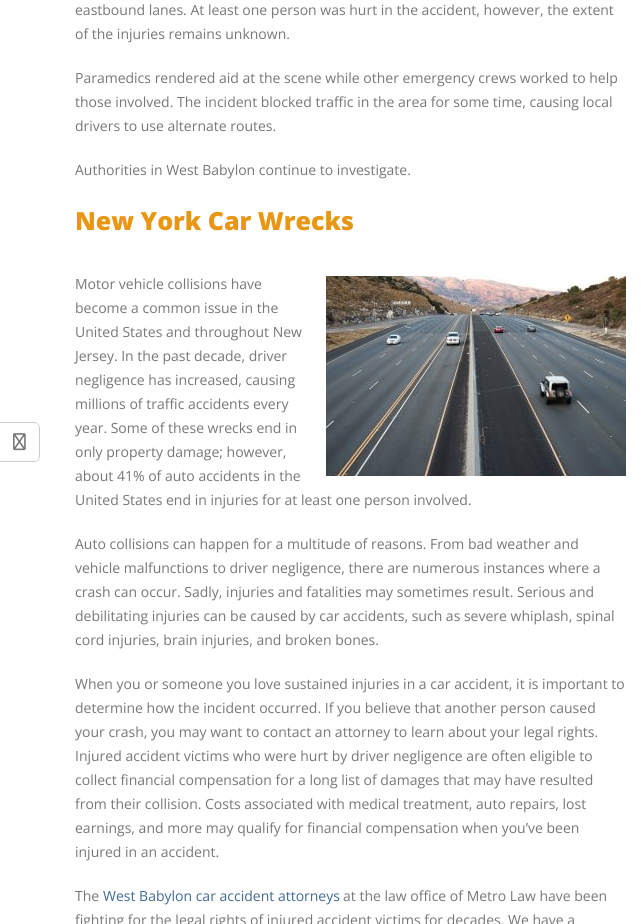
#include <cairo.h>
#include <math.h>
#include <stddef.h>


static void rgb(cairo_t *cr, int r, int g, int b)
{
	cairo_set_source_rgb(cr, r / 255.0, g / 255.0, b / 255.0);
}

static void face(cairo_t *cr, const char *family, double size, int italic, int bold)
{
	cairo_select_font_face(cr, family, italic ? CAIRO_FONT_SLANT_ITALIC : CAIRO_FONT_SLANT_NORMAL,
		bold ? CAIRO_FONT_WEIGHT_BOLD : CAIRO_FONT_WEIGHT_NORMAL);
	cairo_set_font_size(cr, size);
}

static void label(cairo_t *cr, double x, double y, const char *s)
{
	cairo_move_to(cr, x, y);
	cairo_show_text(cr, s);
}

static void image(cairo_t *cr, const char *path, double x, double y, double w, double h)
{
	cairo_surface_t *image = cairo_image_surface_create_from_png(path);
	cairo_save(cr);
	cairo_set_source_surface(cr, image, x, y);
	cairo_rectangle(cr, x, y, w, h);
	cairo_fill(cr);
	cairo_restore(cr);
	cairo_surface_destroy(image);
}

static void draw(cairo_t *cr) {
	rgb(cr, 255, 255, 255);
	cairo_paint(cr);
	rgb(cr, 204, 204, 204);
	cairo_set_fill_rule(cr, CAIRO_FILL_RULE_EVEN_ODD);
	cairo_new_path(cr);
	cairo_move_to(cr, 0, 422);
	cairo_line_to(cr, 34, 422);
	cairo_curve_to(cr, 37, 422, 40, 425, 40, 428);
	cairo_line_to(cr, 40, 456);
	cairo_curve_to(cr, 40, 459, 37, 462, 34, 462);
	cairo_line_to(cr, 0, 462);
	cairo_close_path(cr);
	cairo_move_to(cr, 0, 423);
	cairo_line_to(cr, 34, 423);
	cairo_curve_to(cr, 37, 423, 39, 425, 39, 428);
	cairo_line_to(cr, 39, 456);
	cairo_curve_to(cr, 39, 459, 37, 461, 34, 461);
	cairo_line_to(cr, 0, 461);
	cairo_close_path(cr);
	cairo_fill(cr);
	image(cr, "image0.png", 13, 433, 13, 18);
	face(cr, "Open Sans", 14, 0, 0);
	rgb(cr, 119, 119, 119);
	label(cr, 75, 15, "eastbound lanes. At least one person was hurt in the accident, however, the extent");
	label(cr, 75, 39, "of the injuries remains unknown.");
	label(cr, 75, 83, "Paramedics rendered aid at the scene while other emergency crews worked to help");
	label(cr, 75, 107, "those involved. The incident blocked traffic in the area for some time, causing local");
	label(cr, 75, 131, "drivers to use alternate routes.");
	label(cr, 75, 175, "Authorities in West Babylon continue to investigate.");
	face(cr, "Open Sans ExtraBold", 25, 0, 0);
	rgb(cr, 232, 150, 19);
	label(cr, 75, 230, "New York Car Wrecks");
	face(cr, "Open Sans", 14, 0, 0);
	rgb(cr, 119, 119, 119);
	label(cr, 75, 289, "Motor vehicle collisions have");
	image(cr, "image1.png", 326, 276, 300, 200);
	label(cr, 75, 313, "become a common issue in the");
	label(cr, 75, 337, "United States and throughout New");
	label(cr, 75, 361, "Jersey. In the past decade, driver");
	label(cr, 75, 385, "negligence has increased, causing");
	label(cr, 75, 409, "millions of traffic accidents every");
	label(cr, 75, 433, "year. Some of these wrecks end in");
	label(cr, 75, 457, "only property damage; however,");
	label(cr, 75, 481, "about 41% of auto accidents in the");
	label(cr, 75, 505, "United States end in injuries for at least one person involved.");
	label(cr, 75, 549, "Auto collisions can happen for a multitude of reasons. From bad weather and");
	label(cr, 75, 573, "vehicle malfunctions to driver negligence, there are numerous instances where a");
	label(cr, 75, 597, "crash can occur. Sadly, injuries and fatalities may sometimes result. Serious and");
	label(cr, 75, 621, "debilitating injuries can be caused by car accidents, such as severe whiplash, spinal");
	label(cr, 75, 645, "cord injuries, brain injuries, and broken bones.");
	label(cr, 75, 689, "When you or someone you love sustained injuries in a car accident, it is important to");
	label(cr, 75, 713, "determine how the incident occurred. If you believe that another person caused");
	label(cr, 75, 737, "your crash, you may want to contact an attorney to learn about your legal rights.");
	label(cr, 75, 761, "Injured accident victims who were hurt by driver negligence are often eligible to");
	label(cr, 75, 785, "collect financial compensation for a long list of damages that may have resulted");
	label(cr, 75, 809, "from their collision. Costs associated with medical treatment, auto repairs, lost");
	label(cr, 75, 833, "earnings, and more may qualify for financial compensation when you’ve been");
	label(cr, 75, 857, "injured in an accident.");
	label(cr, 75, 901, "The");
	rgb(cr, 65, 106, 146);
	label(cr, 103, 901, "West Babylon car accident attorneys");
	rgb(cr, 119, 119, 119);
	label(cr, 343, 901, "at the law office of Metro Law have been");
	label(cr, 75, 925, "fighting for the legal rights of injured accident victims for decades. We have a");
}

int main(void) {
	cairo_surface_t *surface = cairo_image_surface_create(CAIRO_FORMAT_RGB24, 641, 924);
	cairo_t *cr = cairo_create(surface);
	cairo_font_options_t *options = cairo_font_options_create();
	cairo_font_options_set_hint_metrics(options, CAIRO_HINT_METRICS_OFF);
	cairo_font_options_set_hint_style(options, CAIRO_HINT_STYLE_NONE);
	cairo_set_font_options(cr, options);
	cairo_set_miter_limit(cr, 4);
	draw(cr);
	cairo_surface_write_to_png(surface, "render.png");
	cairo_font_options_destroy(options);
	cairo_destroy(cr);
	cairo_surface_destroy(surface);
	return 0;
}
